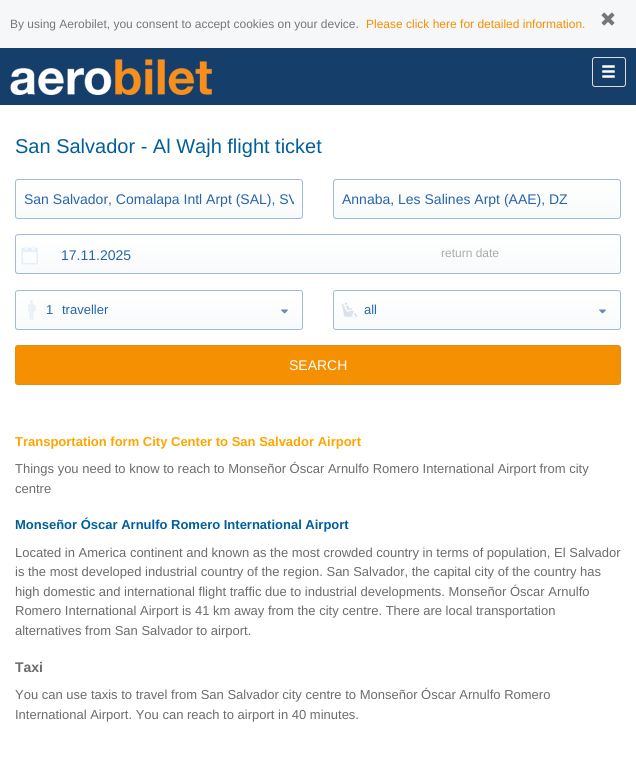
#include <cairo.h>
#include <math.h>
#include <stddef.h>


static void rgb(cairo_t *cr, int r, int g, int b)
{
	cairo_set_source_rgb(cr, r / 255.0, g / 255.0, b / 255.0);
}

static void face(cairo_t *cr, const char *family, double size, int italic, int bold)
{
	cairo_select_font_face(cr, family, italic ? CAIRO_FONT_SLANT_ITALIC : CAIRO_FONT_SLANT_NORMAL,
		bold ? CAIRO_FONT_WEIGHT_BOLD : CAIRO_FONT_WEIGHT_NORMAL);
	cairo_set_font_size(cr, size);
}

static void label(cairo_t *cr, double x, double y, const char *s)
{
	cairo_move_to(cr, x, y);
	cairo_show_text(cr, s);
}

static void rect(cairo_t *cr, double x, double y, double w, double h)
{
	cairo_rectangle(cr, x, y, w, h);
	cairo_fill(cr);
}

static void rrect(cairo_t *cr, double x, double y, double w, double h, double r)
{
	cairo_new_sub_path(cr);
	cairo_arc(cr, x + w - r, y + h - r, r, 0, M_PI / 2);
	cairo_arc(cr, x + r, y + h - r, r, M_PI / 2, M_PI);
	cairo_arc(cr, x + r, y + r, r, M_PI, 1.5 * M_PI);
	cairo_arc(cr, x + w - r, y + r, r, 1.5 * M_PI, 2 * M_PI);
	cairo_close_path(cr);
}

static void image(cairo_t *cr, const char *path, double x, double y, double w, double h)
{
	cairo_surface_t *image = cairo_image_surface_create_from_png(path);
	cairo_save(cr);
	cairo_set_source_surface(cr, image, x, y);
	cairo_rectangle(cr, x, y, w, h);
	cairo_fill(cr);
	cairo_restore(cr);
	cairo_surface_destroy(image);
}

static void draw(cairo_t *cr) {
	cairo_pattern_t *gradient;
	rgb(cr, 255, 255, 255);
	cairo_paint(cr);
	rgb(cr, 246, 247, 249);
	rect(cr, 0, 0, 636, 48);
	face(cr, "Liberation Sans", 12, 0, 0);
	rgb(cr, 119, 119, 119);
	label(cr, 10, 28, "By using Aerobilet, you consent to accept cookies on your device.");
	rgb(cr, 244, 144, 1);
	label(cr, 366, 28, "Please click here for detailed information.");
	image(cr, "image0.png", 601, 12, 14, 14);
	rgb(cr, 22, 62, 106);
	rect(cr, 0, 48, 636, 57);
	image(cr, "image1.png", 10, 59, 202, 36);
	rrect(cr, 592.5, 57.5, 33, 29, 2.5);
	rgb(cr, 221, 221, 221);
	cairo_set_line_width(cr, 1);
	cairo_stroke(cr);
	image(cr, "image2.png", 602, 65, 13, 13);
	face(cr, "Liberation Sans", 20, 0, 0);
	rgb(cr, 0, 95, 155);
	label(cr, 15, 153, "San Salvador - Al Wajh flight ticket");
	cairo_save(cr);
	rrect(cr, 15, 179, 288, 40, 3);
	cairo_clip(cr);
	gradient = cairo_pattern_create_linear(159, 180, 159, 218);
	cairo_pattern_add_color_stop_rgba(gradient, 0, 1, 1, 1, 1);
	cairo_pattern_add_color_stop_rgba(gradient, 1, 0.973, 0.98, 0.984, 1);
	cairo_set_source(cr, gradient);
	cairo_pattern_destroy(gradient);
	rect(cr, 15, 180, 288, 38);
	cairo_restore(cr);
	rrect(cr, 15.5, 179.5, 287, 39, 2.5);
	rgb(cr, 159, 186, 216);
	cairo_stroke(cr);
	cairo_save(cr);
	cairo_rectangle(cr, 24, 191, 270, 16);
	cairo_clip(cr);
	face(cr, "Liberation Sans", 14, 0, 0);
	rgb(cr, 40, 101, 169);
	label(cr, 24, 204, "San Salvador, Comalapa Intl Arpt (SAL), SV");
	cairo_restore(cr);
	cairo_save(cr);
	rrect(cr, 333, 179, 288, 40, 3);
	cairo_clip(cr);
	gradient = cairo_pattern_create_linear(477, 180, 477, 218);
	cairo_pattern_add_color_stop_rgba(gradient, 0, 1, 1, 1, 1);
	cairo_pattern_add_color_stop_rgba(gradient, 1, 0.973, 0.98, 0.984, 1);
	cairo_set_source(cr, gradient);
	cairo_pattern_destroy(gradient);
	rect(cr, 333, 180, 288, 38);
	cairo_restore(cr);
	rrect(cr, 333.5, 179.5, 287, 39, 2.5);
	cairo_stroke(cr);
	face(cr, "Liberation Sans", 14, 0, 0);
	rgb(cr, 40, 101, 169);
	label(cr, 342, 204, "Annaba, Les Salines Arpt (AAE), DZ");
	cairo_save(cr);
	rrect(cr, 15, 234, 606, 40, 3);
	cairo_clip(cr);
	gradient = cairo_pattern_create_linear(318, 235, 318, 273);
	cairo_pattern_add_color_stop_rgba(gradient, 0, 1, 1, 1, 1);
	cairo_pattern_add_color_stop_rgba(gradient, 1, 0.973, 0.98, 0.984, 1);
	cairo_set_source(cr, gradient);
	cairo_pattern_destroy(gradient);
	rect(cr, 15, 235, 606, 38);
	cairo_restore(cr);
	rrect(cr, 15.5, 234.5, 605, 39, 2.5);
	rgb(cr, 159, 186, 216);
	cairo_stroke(cr);
	image(cr, "image3.png", 21, 246, 17, 19);
	rgb(cr, 40, 101, 169);
	label(cr, 61, 260, "17.11.2025");
	face(cr, "Liberation Sans", 12, 0, 0);
	rgb(cr, 170, 170, 170);
	label(cr, 441, 257, "return date");
	cairo_save(cr);
	rrect(cr, 15, 290, 288, 40, 3);
	cairo_clip(cr);
	gradient = cairo_pattern_create_linear(159, 291, 159, 329);
	cairo_pattern_add_color_stop_rgba(gradient, 0, 1, 1, 1, 1);
	cairo_pattern_add_color_stop_rgba(gradient, 1, 0.973, 0.98, 0.984, 1);
	cairo_set_source(cr, gradient);
	cairo_pattern_destroy(gradient);
	rect(cr, 15, 291, 288, 38);
	cairo_restore(cr);
	rrect(cr, 15.5, 290.5, 287, 39, 2.5);
	rgb(cr, 159, 186, 216);
	cairo_stroke(cr);
	image(cr, "image4.png", 28, 300, 8, 20);
	image(cr, "image5.png", 281, 309, 7, 5);
	face(cr, "Liberation Sans", 13, 0, 0);
	rgb(cr, 40, 101, 169);
	label(cr, 46, 314, "1");
	label(cr, 62, 314, "traveller");
	cairo_save(cr);
	rrect(cr, 333, 290, 288, 40, 3);
	cairo_clip(cr);
	gradient = cairo_pattern_create_linear(477, 291, 477, 329);
	cairo_pattern_add_color_stop_rgba(gradient, 0, 1, 1, 1, 1);
	cairo_pattern_add_color_stop_rgba(gradient, 1, 0.973, 0.98, 0.984, 1);
	cairo_set_source(cr, gradient);
	cairo_pattern_destroy(gradient);
	rect(cr, 333, 291, 288, 38);
	cairo_restore(cr);
	rrect(cr, 333.5, 290.5, 287, 39, 2.5);
	rgb(cr, 159, 186, 216);
	cairo_stroke(cr);
	image(cr, "image6.png", 341, 302, 17, 16);
	image(cr, "image5.png", 599, 309, 7, 5);
	rgb(cr, 40, 101, 169);
	label(cr, 364, 314, "all");
	rgb(cr, 244, 144, 1);
	rrect(cr, 15.5, 345.5, 605, 39, 2.5);
	cairo_fill_preserve(cr);
	rgb(cr, 227, 141, 19);
	cairo_stroke(cr);
	face(cr, "Liberation Sans", 14, 0, 0);
	rgb(cr, 255, 255, 255);
	label(cr, 289, 370, "SEARCH");
	face(cr, "Liberation Sans", 13, 0, 1);
	rgb(cr, 255, 165, 0);
	label(cr, 15, 446, "Transportation form City Center to San Salvador Airport");
	face(cr, "Liberation Sans", 13, 0, 0);
	rgb(cr, 108, 108, 108);
	label(cr, 15, 473, "Things you need to know to reach to Monseñor Óscar Arnulfo Romero International Airport from city");
	label(cr, 15, 493, "centre");
	face(cr, "Liberation Sans", 13, 0, 1);
	rgb(cr, 0, 95, 155);
	label(cr, 15, 529, "Monseñor Óscar Arnulfo Romero International Airport");
	face(cr, "Liberation Sans", 13, 0, 0);
	rgb(cr, 108, 108, 108);
	label(cr, 15, 557, "Located in America continent and known as the most crowded country in terms of population, El Salvador");
	label(cr, 15, 576, "is the most developed industrial country of the region. San Salvador, the capital city of the country has");
	label(cr, 15, 596, "high domestic and international flight traffic due to industrial developments. Monseñor Óscar Arnulfo");
	label(cr, 15, 615, "Romero International Airport is 41 km away from the city centre. There are local transportation");
	label(cr, 15, 635, "alternatives from San Salvador to airport.");
	face(cr, "Liberation Sans", 14, 0, 1);
	label(cr, 15, 672, "Taxi");
	face(cr, "Liberation Sans", 13, 0, 0);
	label(cr, 15, 699, "You can use taxis to travel from San Salvador city centre to Monseñor Óscar Arnulfo Romero");
	label(cr, 15, 719, "International Airport. You can reach to airport in 40 minutes.");
}

int main(void) {
	cairo_surface_t *surface = cairo_image_surface_create(CAIRO_FORMAT_RGB24, 636, 757);
	cairo_t *cr = cairo_create(surface);
	cairo_font_options_t *options = cairo_font_options_create();
	cairo_font_options_set_hint_metrics(options, CAIRO_HINT_METRICS_OFF);
	cairo_font_options_set_hint_style(options, CAIRO_HINT_STYLE_NONE);
	cairo_set_font_options(cr, options);
	cairo_set_miter_limit(cr, 4);
	draw(cr);
	cairo_surface_write_to_png(surface, "render.png");
	cairo_font_options_destroy(options);
	cairo_destroy(cr);
	cairo_surface_destroy(surface);
	return 0;
}
